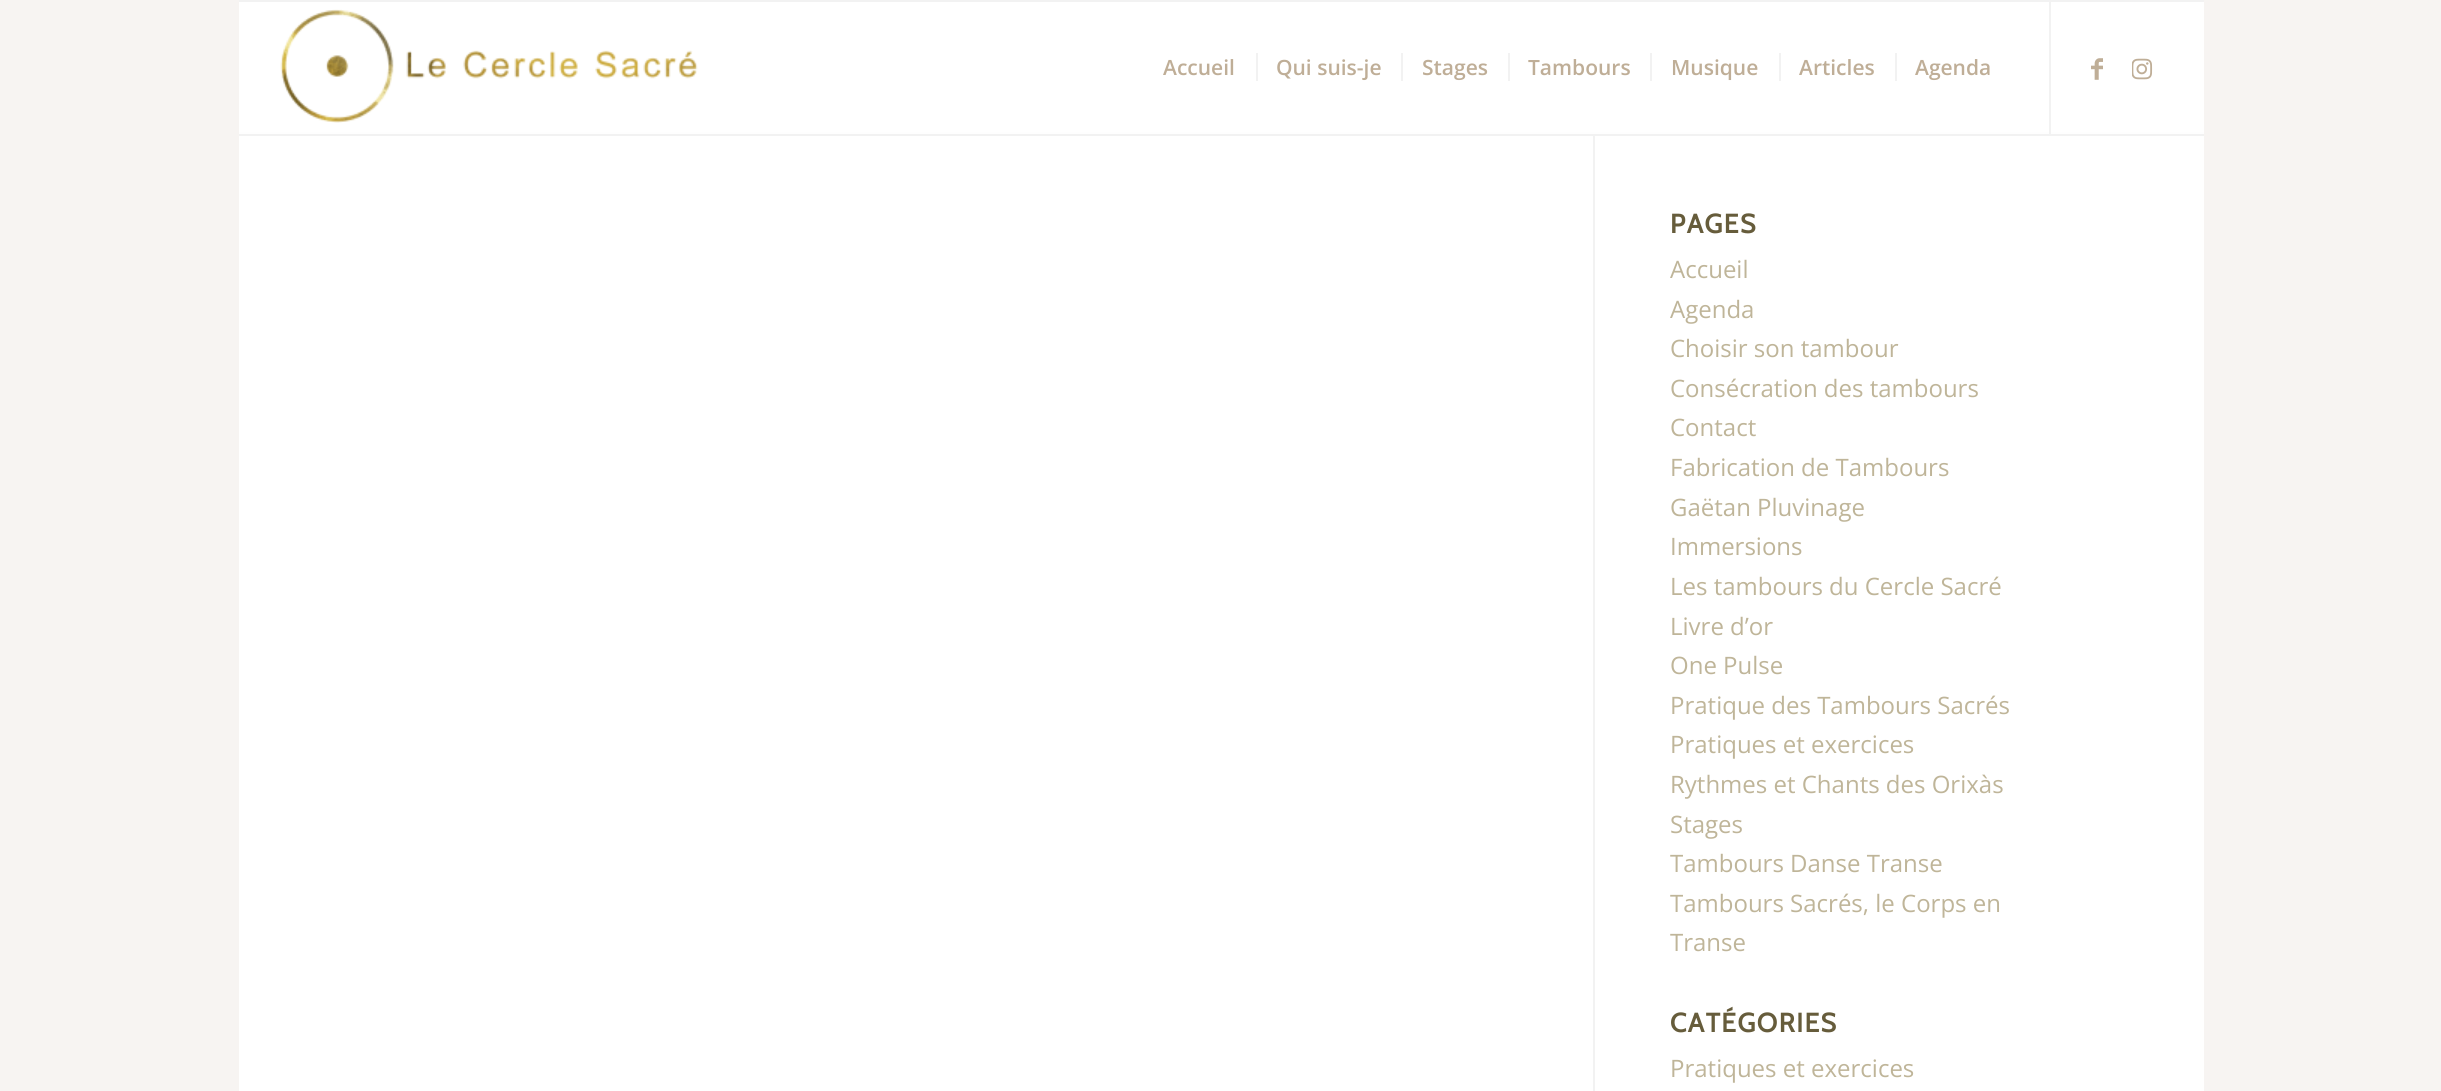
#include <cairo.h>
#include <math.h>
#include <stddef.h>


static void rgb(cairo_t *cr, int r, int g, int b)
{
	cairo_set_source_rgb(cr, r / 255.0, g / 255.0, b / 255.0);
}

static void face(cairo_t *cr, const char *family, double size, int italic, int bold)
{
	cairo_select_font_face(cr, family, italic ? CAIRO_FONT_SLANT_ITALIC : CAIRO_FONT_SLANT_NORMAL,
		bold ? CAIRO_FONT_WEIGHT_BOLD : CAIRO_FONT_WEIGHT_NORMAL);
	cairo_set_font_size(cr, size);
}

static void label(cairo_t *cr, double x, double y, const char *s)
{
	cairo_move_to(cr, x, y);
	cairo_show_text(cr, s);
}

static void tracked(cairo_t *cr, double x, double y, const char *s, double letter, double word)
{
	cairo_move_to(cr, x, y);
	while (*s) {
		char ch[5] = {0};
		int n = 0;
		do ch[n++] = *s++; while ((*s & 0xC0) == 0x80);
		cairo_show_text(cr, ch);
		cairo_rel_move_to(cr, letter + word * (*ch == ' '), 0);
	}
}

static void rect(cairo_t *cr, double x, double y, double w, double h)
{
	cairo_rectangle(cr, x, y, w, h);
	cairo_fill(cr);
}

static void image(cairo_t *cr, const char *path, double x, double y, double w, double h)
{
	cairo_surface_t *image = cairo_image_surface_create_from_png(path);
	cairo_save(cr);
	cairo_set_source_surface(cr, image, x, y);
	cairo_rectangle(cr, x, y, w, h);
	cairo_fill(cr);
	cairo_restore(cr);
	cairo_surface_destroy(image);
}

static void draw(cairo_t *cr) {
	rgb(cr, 247, 244, 242);
	cairo_paint(cr);
	rgb(cr, 242, 242, 242);
	rect(cr, 239, 0, 1965, 2);
	rgb(cr, 255, 255, 255);
	rect(cr, 239, 136, 1965, 955);
	rgb(cr, 242, 242, 242);
	rect(cr, 1593, 134, 2, 957);
	rect(cr, 239, 134, 1965, 2);
	rgb(cr, 255, 255, 255);
	rect(cr, 239, 2, 1965, 130);
	image(cr, "image0.png", 280, 9, 418, 114);
	rgb(cr, 254, 254, 254);
	rect(cr, 239, 132, 1965, 2);
	rgb(cr, 242, 242, 242);
	rect(cr, 2049, 2, 2, 132);
	face(cr, "Open Sans SemiBold", 21, 0, 0);
	rgb(cr, 191, 174, 151);
	label(cr, 1163, 75, "Accueil");
	label(cr, 1276, 75, "Qui suis-je");
	rgb(cr, 242, 242, 242);
	rect(cr, 1256, 53, 2, 28);
	rgb(cr, 191, 174, 151);
	label(cr, 1422, 75, "Stages");
	rgb(cr, 242, 242, 242);
	rect(cr, 1401, 53, 2, 28);
	rgb(cr, 191, 174, 151);
	label(cr, 1528, 75, "Tambours");
	rgb(cr, 242, 242, 242);
	rect(cr, 1508, 53, 2, 28);
	rgb(cr, 191, 174, 151);
	label(cr, 1671, 75, "Musique");
	rgb(cr, 242, 242, 242);
	rect(cr, 1650, 53, 2, 28);
	rgb(cr, 191, 174, 151);
	label(cr, 1799, 75, "Articles");
	rgb(cr, 242, 242, 242);
	rect(cr, 1779, 53, 2, 28);
	rgb(cr, 191, 174, 151);
	label(cr, 1915, 75, "Agenda");
	rgb(cr, 242, 242, 242);
	rect(cr, 1895, 53, 2, 28);
	image(cr, "image1.png", 2091, 58, 12, 22);
	image(cr, "image2.png", 2132, 58, 21, 22);
	face(cr, "Cabin", 26.5, 0, 1);
	rgb(cr, 102, 92, 59);
	tracked(cr, 1670, 233, "PAGES", 1.5, 0);
	face(cr, "Open Sans", 24, 0, 0);
	rgb(cr, 191, 181, 153);
	label(cr, 1670, 278, "Accueil");
	label(cr, 1670, 318, "Agenda");
	label(cr, 1670, 357, "Choisir son tambour");
	label(cr, 1670, 397, "Consécration des tambours");
	label(cr, 1670, 436, "Contact");
	label(cr, 1670, 476, "Fabrication de Tambours");
	label(cr, 1670, 516, "Gaëtan Pluvinage");
	label(cr, 1670, 555, "Immersions");
	label(cr, 1670, 595, "Les tambours du Cercle Sacré");
	label(cr, 1670, 635, "Livre d’or");
	label(cr, 1670, 674, "One Pulse");
	label(cr, 1670, 714, "Pratique des Tambours Sacrés");
	label(cr, 1670, 753, "Pratiques et exercices");
	label(cr, 1670, 793, "Rythmes et Chants des Orixàs");
	label(cr, 1670, 833, "Stages");
	label(cr, 1670, 872, "Tambours Danse Transe");
	label(cr, 1670, 912, "Tambours Sacrés, le Corps en");
	label(cr, 1670, 951, "Transe");
	face(cr, "Cabin", 26.5, 0, 1);
	rgb(cr, 102, 92, 59);
	tracked(cr, 1670, 1032, "CATÉGORIES", 1.5, 0);
	face(cr, "Open Sans", 24, 0, 0);
	rgb(cr, 191, 181, 153);
	label(cr, 1670, 1077, "Pratiques et exercices");
}

int main(void) {
	cairo_surface_t *surface = cairo_image_surface_create(CAIRO_FORMAT_RGB24, 2441, 1091);
	cairo_t *cr = cairo_create(surface);
	cairo_font_options_t *options = cairo_font_options_create();
	cairo_font_options_set_hint_metrics(options, CAIRO_HINT_METRICS_OFF);
	cairo_font_options_set_hint_style(options, CAIRO_HINT_STYLE_NONE);
	cairo_set_font_options(cr, options);
	cairo_set_miter_limit(cr, 4);
	draw(cr);
	cairo_surface_write_to_png(surface, "render.png");
	cairo_font_options_destroy(options);
	cairo_destroy(cr);
	cairo_surface_destroy(surface);
	return 0;
}
